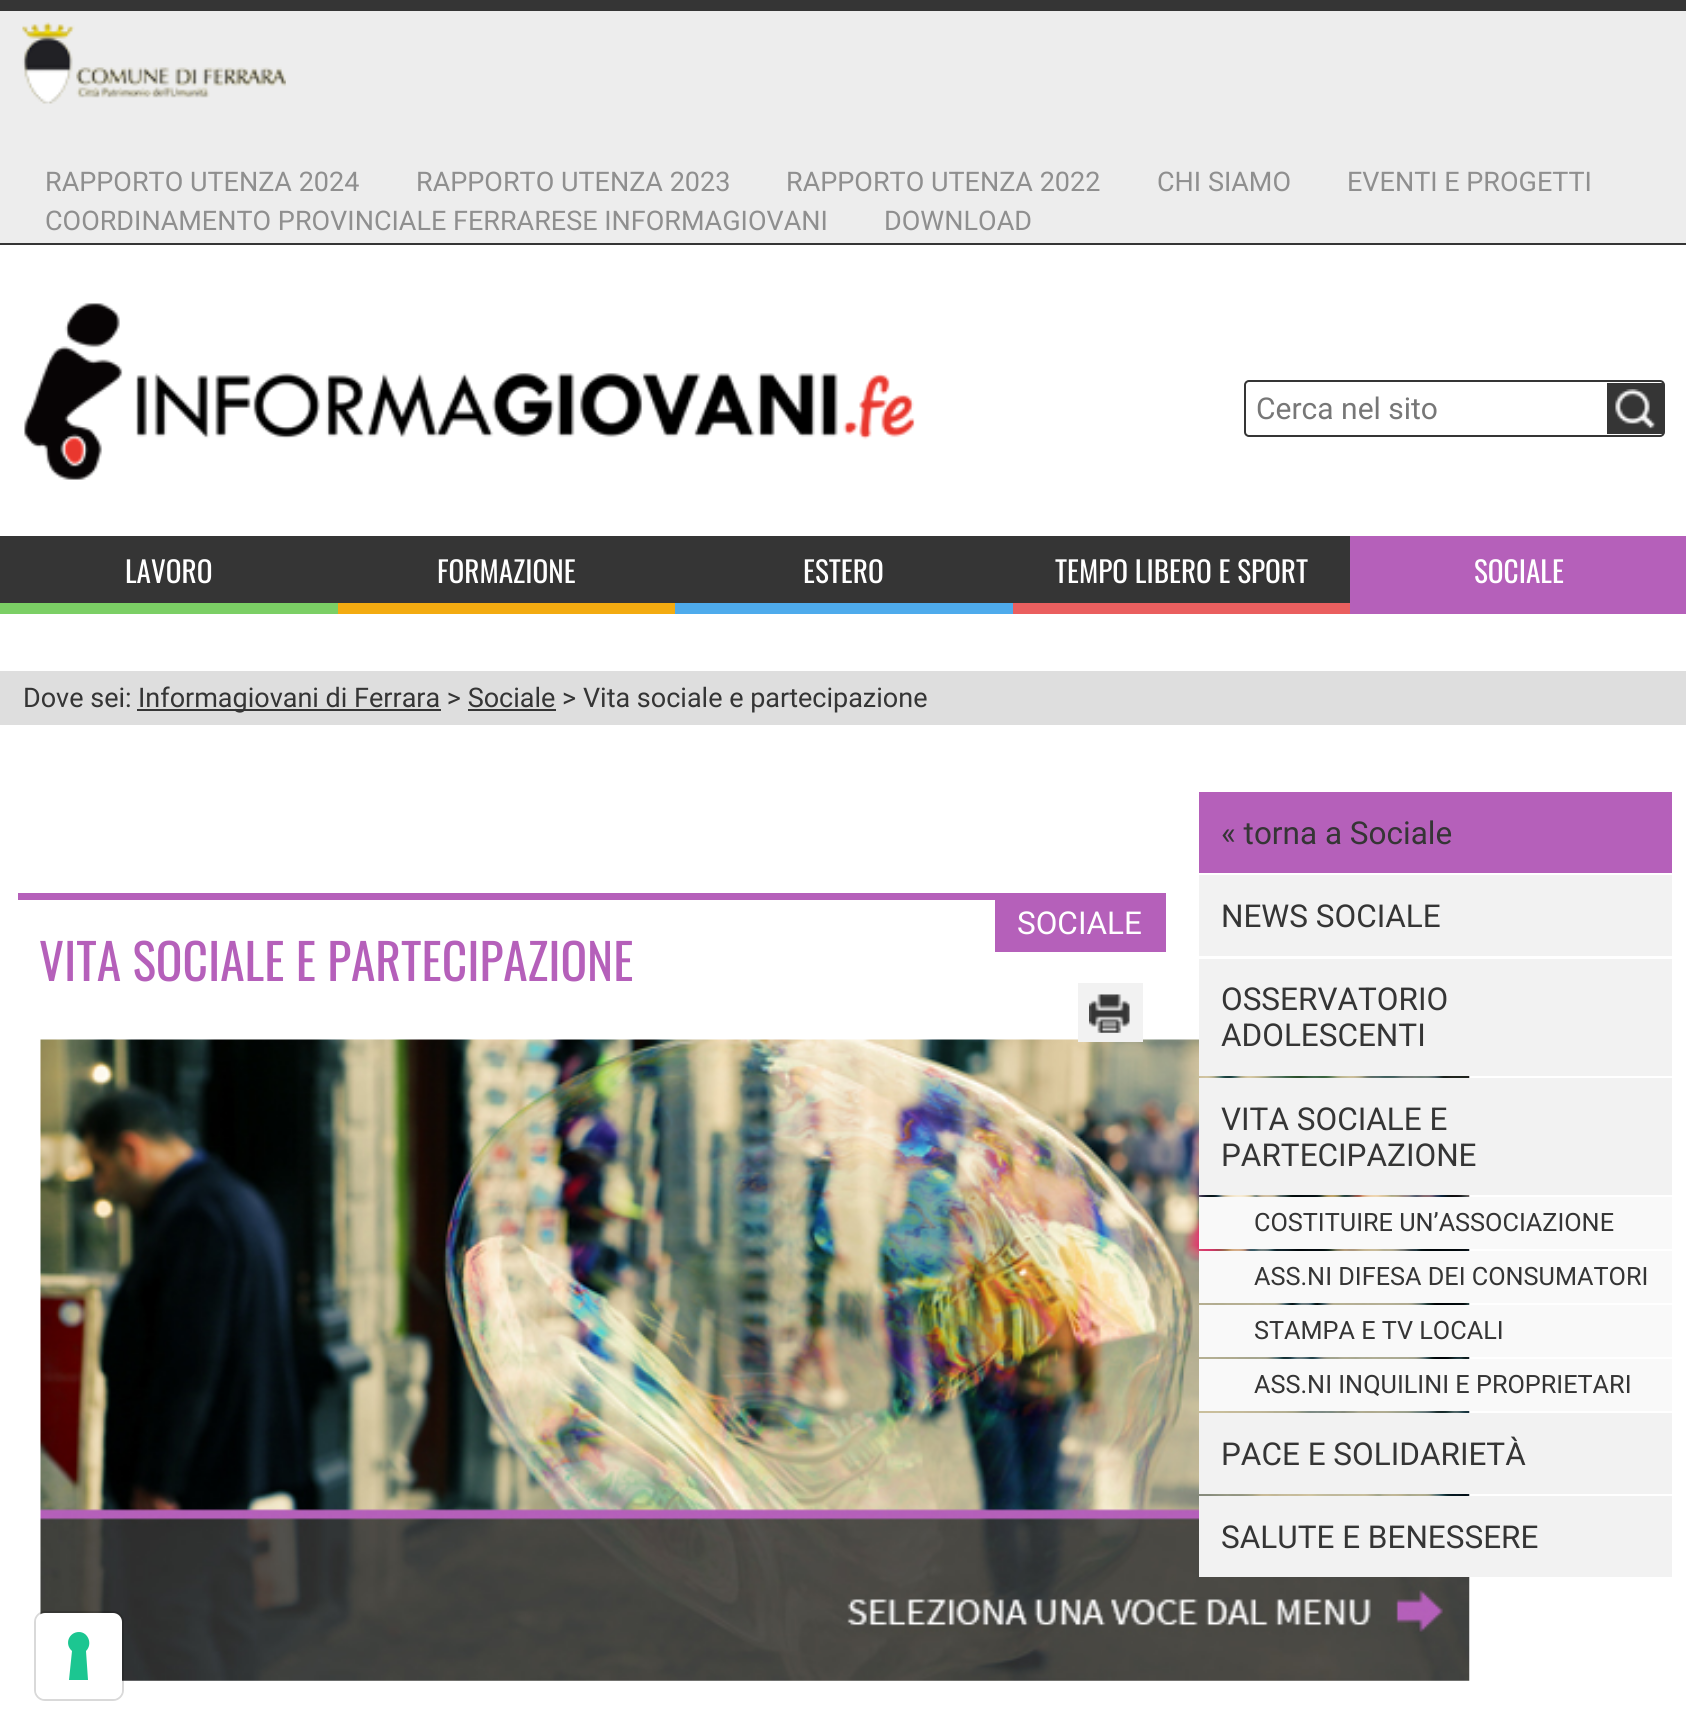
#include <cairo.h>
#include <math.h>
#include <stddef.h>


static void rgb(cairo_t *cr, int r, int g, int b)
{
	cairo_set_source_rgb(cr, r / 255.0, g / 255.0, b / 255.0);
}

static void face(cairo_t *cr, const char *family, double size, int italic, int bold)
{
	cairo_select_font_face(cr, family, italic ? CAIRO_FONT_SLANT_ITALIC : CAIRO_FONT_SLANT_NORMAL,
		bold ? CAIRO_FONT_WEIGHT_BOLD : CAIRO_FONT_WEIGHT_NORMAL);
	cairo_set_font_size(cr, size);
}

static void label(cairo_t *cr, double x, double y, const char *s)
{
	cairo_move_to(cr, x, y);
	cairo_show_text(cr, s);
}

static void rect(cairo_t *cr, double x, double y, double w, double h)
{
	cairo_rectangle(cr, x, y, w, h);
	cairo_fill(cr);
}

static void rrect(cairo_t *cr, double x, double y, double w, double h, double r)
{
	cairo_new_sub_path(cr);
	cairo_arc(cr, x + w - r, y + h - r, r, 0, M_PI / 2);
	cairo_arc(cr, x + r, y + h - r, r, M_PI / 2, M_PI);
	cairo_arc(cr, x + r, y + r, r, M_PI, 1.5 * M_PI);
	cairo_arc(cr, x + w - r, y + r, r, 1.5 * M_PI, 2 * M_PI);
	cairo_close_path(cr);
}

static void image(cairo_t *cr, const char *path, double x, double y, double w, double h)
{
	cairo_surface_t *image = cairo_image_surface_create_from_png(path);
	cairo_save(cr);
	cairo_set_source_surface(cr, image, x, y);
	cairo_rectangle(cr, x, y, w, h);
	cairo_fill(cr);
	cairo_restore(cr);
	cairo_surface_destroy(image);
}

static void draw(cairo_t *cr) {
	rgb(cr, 255, 255, 255);
	cairo_paint(cr);
	rgb(cr, 53, 53, 53);
	rect(cr, 0, 0, 1686, 11);
	rgb(cr, 237, 237, 237);
	rect(cr, 0, 11, 1686, 232);
	rgb(cr, 53, 53, 53);
	rect(cr, 0, 243, 1686, 2);
	image(cr, "image0.png", 22, 22, 264, 82);
	face(cr, "Roboto", 27, 0, 0);
	rgb(cr, 143, 143, 143);
	label(cr, 45, 191, "RAPPORTO UTENZA 2024");
	label(cr, 416, 191, "RAPPORTO UTENZA 2023");
	label(cr, 786, 191, "RAPPORTO UTENZA 2022");
	label(cr, 1157, 191, "CHI SIAMO");
	label(cr, 1347, 191, "EVENTI E PROGETTI");
	label(cr, 45, 230, "COORDINAMENTO PROVINCIALE FERRARESE INFORMAGIOVANI");
	label(cr, 884, 230, "DOWNLOAD");
	image(cr, "image1.png", 24, 303, 891, 177);
	rrect(cr, 1245, 381, 419, 55, 4);
	rgb(cr, 53, 53, 53);
	cairo_stroke(cr);
	face(cr, "Roboto", 30, 0, 0);
	rgb(cr, 119, 119, 119);
	label(cr, 1256, 419, "Cerca nel sito");
	rgb(cr, 53, 53, 53);
	rect(cr, 1607, 383, 56, 51);
	image(cr, "image2.png", 1615, 389, 41, 41);
	rect(cr, 0, 536, 1350, 67);
	rgb(cr, 123, 207, 101);
	rect(cr, 0, 603, 338, 11);
	face(cr, "Oswald", 29.25, 0, 0);
	rgb(cr, 255, 255, 255);
	label(cr, 125, 583, "LAVORO");
	rgb(cr, 243, 171, 17);
	rect(cr, 338, 603, 337, 11);
	rgb(cr, 255, 255, 255);
	label(cr, 437, 583, "FORMAZIONE");
	rgb(cr, 78, 171, 236);
	rect(cr, 675, 603, 338, 11);
	rgb(cr, 255, 255, 255);
	label(cr, 803, 583, "ESTERO");
	rgb(cr, 234, 95, 95);
	rect(cr, 1013, 603, 337, 11);
	rgb(cr, 255, 255, 255);
	label(cr, 1055, 583, "TEMPO LIBERO E SPORT");
	rgb(cr, 181, 96, 186);
	rect(cr, 1350, 536, 336, 78);
	rgb(cr, 255, 255, 255);
	label(cr, 1474, 583, "SOCIALE");
	rgb(cr, 222, 222, 222);
	rect(cr, 0, 671, 1686, 54);
	face(cr, "Roboto", 27, 0, 0);
	rgb(cr, 53, 53, 53);
	label(cr, 23, 707, "Dove sei:");
	rect(cr, 137, 709, 304, 2);
	label(cr, 138, 707, "Informagiovani di Ferrara > Sociale > Vita sociale e partecipazione");
	rect(cr, 468, 709, 88, 2);
	rgb(cr, 181, 96, 186);
	rect(cr, 995, 893, 171, 59);
	face(cr, "Roboto", 31.5, 0, 0);
	rgb(cr, 255, 255, 255);
	label(cr, 1017, 934, "SOCIALE");
	rgb(cr, 181, 96, 186);
	rect(cr, 18, 893, 977, 7);
	face(cr, "Oswald", 49.5, 0, 0);
	label(cr, 39, 981, "VITA SOCIALE E PARTECIPAZIONE");
	image(cr, "image4.png", 40, 1039, 1430, 642);
	rgb(cr, 242, 242, 242);
	rect(cr, 1078, 983, 65, 59);
	image(cr, "image3.png", 1089, 994, 41, 39);
	rgb(cr, 181, 96, 186);
	rect(cr, 1199, 792, 473, 81);
	face(cr, "Roboto", 31.5, 0, 0);
	rgb(cr, 53, 53, 53);
	label(cr, 1221, 844, "« torna a Sociale");
	rgb(cr, 242, 242, 242);
	rect(cr, 1199, 875, 473, 81);
	rgb(cr, 53, 53, 53);
	label(cr, 1221, 927, "NEWS SOCIALE");
	rgb(cr, 242, 242, 242);
	rect(cr, 1199, 959, 473, 117);
	rgb(cr, 53, 53, 53);
	label(cr, 1221, 1010, "OSSERVATORIO");
	label(cr, 1221, 1046, "ADOLESCENTI");
	rgb(cr, 242, 242, 242);
	rect(cr, 1199, 1078, 473, 117);
	rgb(cr, 53, 53, 53);
	label(cr, 1221, 1130, "VITA SOCIALE E");
	label(cr, 1221, 1166, "PARTECIPAZIONE");
	rgb(cr, 249, 249, 249);
	rect(cr, 1199, 1197, 473, 52);
	face(cr, "Roboto", 25.25, 0, 0);
	rgb(cr, 53, 53, 53);
	label(cr, 1254, 1231, "COSTITUIRE UN’ASSOCIAZIONE");
	rgb(cr, 249, 249, 249);
	rect(cr, 1199, 1251, 473, 52);
	rgb(cr, 53, 53, 53);
	label(cr, 1254, 1285, "ASS.NI DIFESA DEI CONSUMATORI");
	rgb(cr, 249, 249, 249);
	rect(cr, 1199, 1305, 473, 52);
	rgb(cr, 53, 53, 53);
	label(cr, 1254, 1339, "STAMPA E TV LOCALI");
	rgb(cr, 249, 249, 249);
	rect(cr, 1199, 1359, 473, 52);
	rgb(cr, 53, 53, 53);
	label(cr, 1254, 1393, "ASS.NI INQUILINI E PROPRIETARI");
	rgb(cr, 242, 242, 242);
	rect(cr, 1199, 1413, 473, 81);
	face(cr, "Roboto", 31.5, 0, 0);
	rgb(cr, 53, 53, 53);
	label(cr, 1221, 1465, "PACE E SOLIDARIETÀ");
	rgb(cr, 242, 242, 242);
	rect(cr, 1199, 1496, 473, 81);
	rgb(cr, 53, 53, 53);
	label(cr, 1221, 1548, "SALUTE E BENESSERE");
	rrect(cr, 35, 1612, 88, 88, 10);
	cairo_set_source_rgba(cr, 0, 0, 0, 0.15);
	cairo_stroke(cr);
	rgb(cr, 255, 255, 255);
	rrect(cr, 36, 1613, 86, 86, 9);
	cairo_fill(cr);
	rgb(cr, 28, 198, 145);
	cairo_set_fill_rule(cr, CAIRO_FILL_RULE_EVEN_ODD);
	cairo_new_path(cr);
	cairo_move_to(cr, 79, 1632);
	cairo_curve_to(cr, 88, 1632, 93, 1644, 86, 1651);
	cairo_line_to(cr, 88, 1680);
	cairo_line_to(cr, 69, 1680);
	cairo_line_to(cr, 72, 1651);
	cairo_curve_to(cr, 64, 1644, 69, 1632, 79, 1632);
	cairo_close_path(cr);
	cairo_fill(cr);
}

int main(void) {
	cairo_surface_t *surface = cairo_image_surface_create(CAIRO_FORMAT_RGB24, 1686, 1733);
	cairo_t *cr = cairo_create(surface);
	cairo_font_options_t *options = cairo_font_options_create();
	cairo_font_options_set_hint_metrics(options, CAIRO_HINT_METRICS_OFF);
	cairo_font_options_set_hint_style(options, CAIRO_HINT_STYLE_NONE);
	cairo_set_font_options(cr, options);
	cairo_set_miter_limit(cr, 4);
	draw(cr);
	cairo_surface_write_to_png(surface, "render.png");
	cairo_font_options_destroy(options);
	cairo_destroy(cr);
	cairo_surface_destroy(surface);
	return 0;
}
